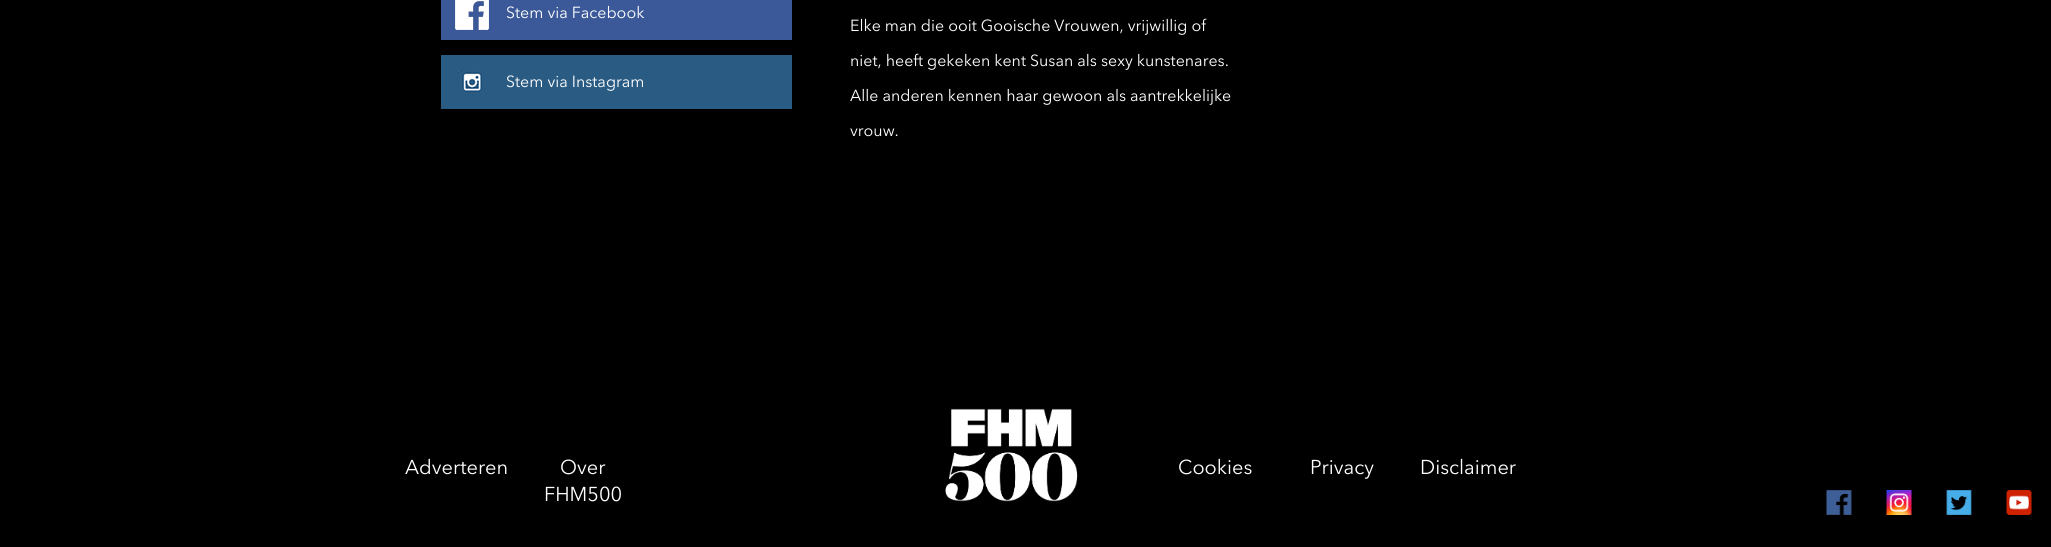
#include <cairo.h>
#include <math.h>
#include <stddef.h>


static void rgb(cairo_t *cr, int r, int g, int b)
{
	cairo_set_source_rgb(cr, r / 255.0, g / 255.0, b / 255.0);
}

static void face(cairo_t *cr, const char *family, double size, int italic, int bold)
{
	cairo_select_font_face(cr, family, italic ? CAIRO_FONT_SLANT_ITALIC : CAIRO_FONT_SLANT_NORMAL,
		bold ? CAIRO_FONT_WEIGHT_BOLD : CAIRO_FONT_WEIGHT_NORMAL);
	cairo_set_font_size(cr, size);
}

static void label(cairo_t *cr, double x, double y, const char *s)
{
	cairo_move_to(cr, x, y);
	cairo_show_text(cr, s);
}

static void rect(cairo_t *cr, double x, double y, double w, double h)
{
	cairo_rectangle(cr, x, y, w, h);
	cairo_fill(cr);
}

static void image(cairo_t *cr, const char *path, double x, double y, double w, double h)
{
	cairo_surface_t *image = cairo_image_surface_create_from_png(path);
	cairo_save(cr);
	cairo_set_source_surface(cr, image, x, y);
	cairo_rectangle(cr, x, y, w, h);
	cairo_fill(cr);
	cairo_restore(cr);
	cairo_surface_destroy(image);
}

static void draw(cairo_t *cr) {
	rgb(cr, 0, 0, 0);
	cairo_paint(cr);
	rgb(cr, 59, 89, 152);
	rect(cr, 441, 0, 351, 40);
	image(cr, "image0.png", 455, 0, 34, 30);
	face(cr, "Avenir Next", 16, 0, 0);
	rgb(cr, 255, 255, 255);
	label(cr, 506, 18, "Stem via Facebook");
	rgb(cr, 42, 91, 131);
	rect(cr, 441, 55, 351, 54);
	image(cr, "image1.png", 458, 67, 31, 32);
	rgb(cr, 255, 255, 255);
	label(cr, 506, 87, "Stem via Instagram");
	label(cr, 850, 31, "Elke man die ooit Gooische Vrouwen, vrijwillig of");
	label(cr, 850, 66, "niet, heeft gekeken kent Susan als sexy kunstenares.");
	label(cr, 850, 101, "Alle anderen kennen haar gewoon als aantrekkelijke");
	label(cr, 850, 136, "vrouw.");
	face(cr, "Avenir Next", 20, 0, 0);
	label(cr, 405, 474, "Adverteren");
	label(cr, 560, 474, "Over");
	label(cr, 544, 501, "FHM500");
	image(cr, "image2.png", 945, 408, 133, 94);
	label(cr, 1178, 474, "Cookies");
	label(cr, 1310, 474, "Privacy");
	label(cr, 1420, 474, "Disclaimer");
	image(cr, "image3.png", 1826, 490, 26, 25);
	image(cr, "image4.png", 1886, 490, 26, 25);
	image(cr, "image5.png", 1946, 490, 26, 25);
	image(cr, "image6.png", 2006, 490, 26, 25);
}

int main(void) {
	cairo_surface_t *surface = cairo_image_surface_create(CAIRO_FORMAT_RGB24, 2051, 547);
	cairo_t *cr = cairo_create(surface);
	cairo_font_options_t *options = cairo_font_options_create();
	cairo_font_options_set_hint_metrics(options, CAIRO_HINT_METRICS_OFF);
	cairo_font_options_set_hint_style(options, CAIRO_HINT_STYLE_NONE);
	cairo_set_font_options(cr, options);
	cairo_set_miter_limit(cr, 4);
	draw(cr);
	cairo_surface_write_to_png(surface, "render.png");
	cairo_font_options_destroy(options);
	cairo_destroy(cr);
	cairo_surface_destroy(surface);
	return 0;
}
